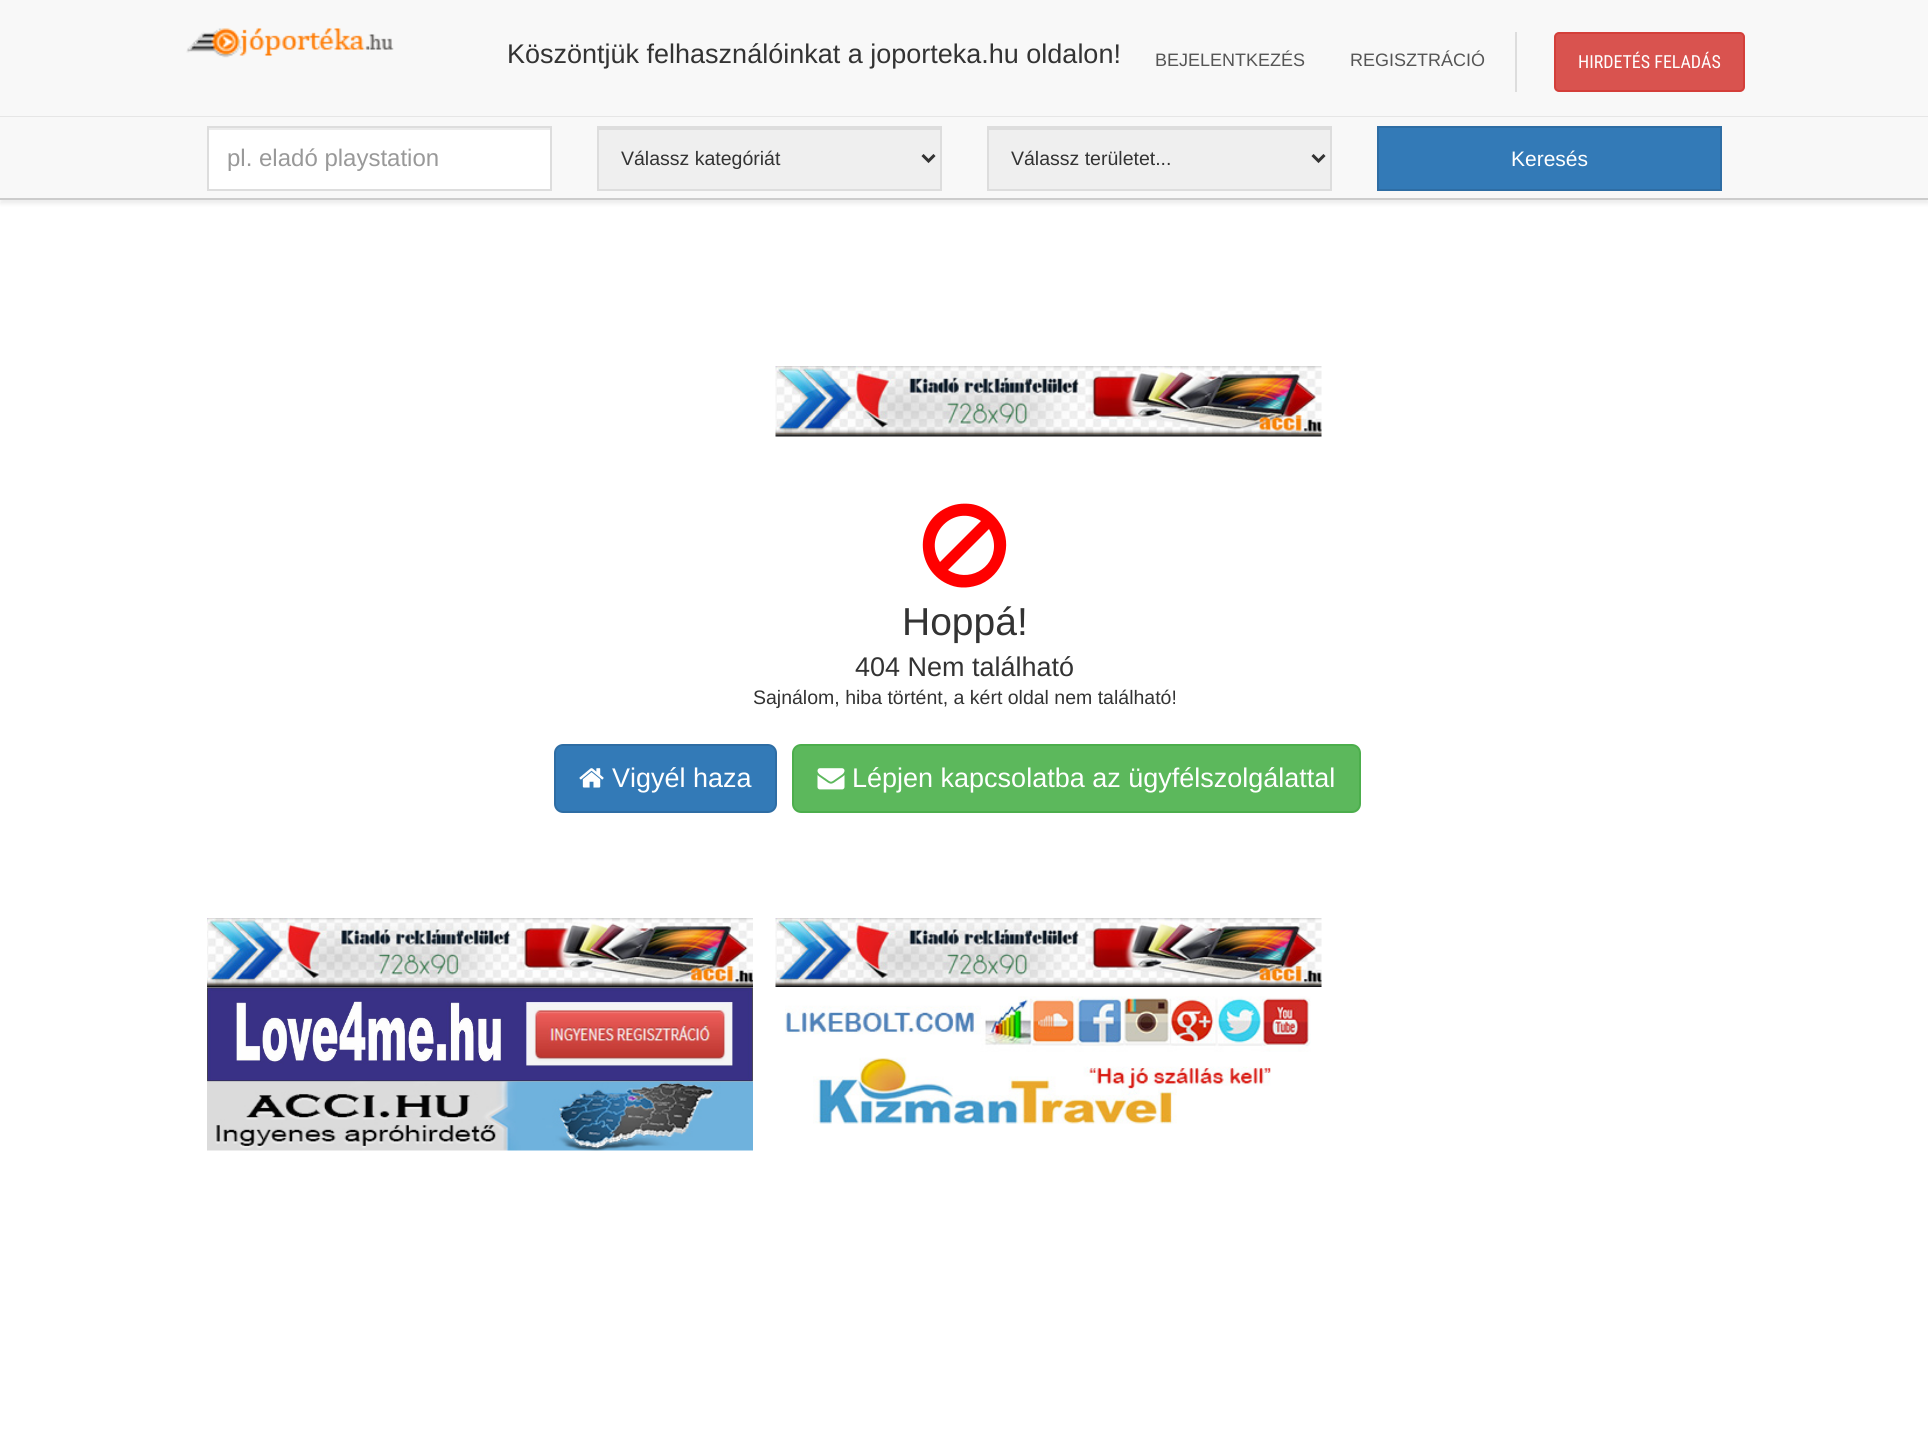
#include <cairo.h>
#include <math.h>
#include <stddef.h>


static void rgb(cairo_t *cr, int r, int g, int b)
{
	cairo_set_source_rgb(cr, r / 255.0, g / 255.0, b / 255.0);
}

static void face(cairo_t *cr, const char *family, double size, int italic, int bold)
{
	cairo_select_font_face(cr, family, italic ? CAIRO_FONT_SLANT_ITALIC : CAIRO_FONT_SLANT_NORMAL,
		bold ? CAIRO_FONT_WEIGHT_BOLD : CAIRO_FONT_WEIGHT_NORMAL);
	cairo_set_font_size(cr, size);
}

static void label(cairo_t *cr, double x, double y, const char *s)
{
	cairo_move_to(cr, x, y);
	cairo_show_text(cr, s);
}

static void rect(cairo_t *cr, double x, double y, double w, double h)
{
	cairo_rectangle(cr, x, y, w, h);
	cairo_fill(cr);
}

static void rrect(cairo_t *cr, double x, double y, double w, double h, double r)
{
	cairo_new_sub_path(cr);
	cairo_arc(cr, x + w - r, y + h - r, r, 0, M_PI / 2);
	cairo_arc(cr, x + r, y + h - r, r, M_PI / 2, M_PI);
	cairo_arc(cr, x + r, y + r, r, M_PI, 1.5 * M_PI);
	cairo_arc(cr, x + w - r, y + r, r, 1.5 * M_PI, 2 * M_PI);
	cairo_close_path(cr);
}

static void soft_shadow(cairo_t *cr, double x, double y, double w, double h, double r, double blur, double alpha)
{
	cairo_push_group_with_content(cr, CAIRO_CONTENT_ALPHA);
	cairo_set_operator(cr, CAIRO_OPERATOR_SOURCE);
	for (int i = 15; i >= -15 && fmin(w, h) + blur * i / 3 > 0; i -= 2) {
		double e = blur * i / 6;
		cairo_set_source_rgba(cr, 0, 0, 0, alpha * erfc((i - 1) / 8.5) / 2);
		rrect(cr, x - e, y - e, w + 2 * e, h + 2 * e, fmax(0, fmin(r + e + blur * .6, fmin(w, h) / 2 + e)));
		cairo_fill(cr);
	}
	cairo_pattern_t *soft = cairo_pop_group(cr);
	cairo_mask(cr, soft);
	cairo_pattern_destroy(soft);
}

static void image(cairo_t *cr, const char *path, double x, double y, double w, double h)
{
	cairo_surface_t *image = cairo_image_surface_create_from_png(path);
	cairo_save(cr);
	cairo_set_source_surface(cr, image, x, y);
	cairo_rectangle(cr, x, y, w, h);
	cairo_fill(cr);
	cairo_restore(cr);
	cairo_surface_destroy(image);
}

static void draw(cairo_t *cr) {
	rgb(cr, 255, 255, 255);
	cairo_paint(cr);
	rgb(cr, 248, 248, 248);
	rect(cr, 0, 0, 1928, 116);
	image(cr, "image0.png", 186, 28, 208, 30);
	face(cr, "Liberation Sans", 27, 0, 0);
	rgb(cr, 51, 51, 51);
	label(cr, 507, 63, "Köszöntjük felhasználóinkat a joporteka.hu oldalon!");
	face(cr, "Liberation Sans", 18, 0, 0);
	rgb(cr, 85, 85, 85);
	label(cr, 1155, 66, "BEJELENTKEZÉS");
	label(cr, 1350, 66, "REGISZTRÁCIÓ");
	rgb(cr, 221, 221, 221);
	rect(cr, 1515, 32, 2, 60);
	rgb(cr, 217, 83, 79);
	rrect(cr, 1555, 33, 189, 58, 4);
	cairo_fill_preserve(cr);
	rgb(cr, 212, 63, 58);
	cairo_stroke(cr);
	face(cr, "Roboto Condensed", 18, 0, 0);
	rgb(cr, 255, 255, 255);
	label(cr, 1578, 68, "HIRDETÉS FELADÁS");
	rgb(cr, 230, 230, 230);
	rect(cr, 0, 116, 1928, 1);
	rgb(cr, 248, 248, 248);
	rect(cr, 0, 117, 1928, 2);
	rgb(cr, 0, 0, 0);
	soft_shadow(cr, 0, 123, 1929, 81, 0, 2, 0.07);
	rgb(cr, 248, 248, 248);
	rect(cr, 0, 119, 1928, 79);
	rgb(cr, 204, 204, 204);
	rect(cr, 0, 198, 1928, 2);
	rgb(cr, 255, 255, 255);
	rect(cr, 209, 130, 341, 59);
	rgb(cr, 236, 236, 236);
	rect(cr, 209, 128, 342, 2);
	cairo_rectangle(cr, 208, 127, 343, 63);
	rgb(cr, 221, 221, 221);
	cairo_stroke(cr);
	face(cr, "Liberation Sans", 24, 0, 0);
	rgb(cr, 153, 153, 153);
	label(cr, 227, 166, "pl. eladó playstation");
	rgb(cr, 239, 239, 239);
	rect(cr, 599, 130, 341, 59);
	rgb(cr, 221, 221, 221);
	rect(cr, 599, 128, 342, 2);
	cairo_rectangle(cr, 598, 127, 343, 63);
	cairo_stroke(cr);
	cairo_new_path(cr);
	cairo_move_to(cr, 922.5, 155);
	cairo_line_to(cr, 928.5, 161);
	cairo_line_to(cr, 934.5, 155);
	rgb(cr, 51, 51, 51);
	cairo_set_line_width(cr, 3);
	cairo_stroke(cr);
	face(cr, "Liberation Sans", 19.5, 0, 0);
	label(cr, 621, 165, "Válassz kategóriát");
	rgb(cr, 239, 239, 239);
	rect(cr, 989, 130, 341, 59);
	rgb(cr, 221, 221, 221);
	rect(cr, 989, 128, 342, 2);
	cairo_rectangle(cr, 988, 127, 343, 63);
	cairo_set_line_width(cr, 2);
	cairo_stroke(cr);
	cairo_new_path(cr);
	cairo_move_to(cr, 1312.5, 155);
	cairo_line_to(cr, 1318.5, 161);
	cairo_line_to(cr, 1324.5, 155);
	rgb(cr, 51, 51, 51);
	cairo_set_line_width(cr, 3);
	cairo_stroke(cr);
	label(cr, 1011, 165, "Válassz területet...");
	rgb(cr, 51, 122, 183);
	cairo_rectangle(cr, 1378, 127, 343, 63);
	cairo_fill_preserve(cr);
	rgb(cr, 46, 109, 164);
	cairo_set_line_width(cr, 2);
	cairo_stroke(cr);
	face(cr, "Liberation Sans", 21, 0, 0);
	rgb(cr, 255, 255, 255);
	label(cr, 1511, 166, "Keresés");
	image(cr, "image1.png", 775, 366, 547, 71);
	rgb(cr, 255, 0, 0);
	cairo_new_path(cr);
	cairo_move_to(cr, 994, 546);
	cairo_curve_to(cr, 994, 540, 992, 534, 989, 529);
	cairo_line_to(cr, 948, 570);
	cairo_curve_to(cr, 968, 583, 994, 569, 994, 546);
	cairo_close_path(cr);
	cairo_move_to(cr, 940, 562);
	cairo_line_to(cr, 981, 521);
	cairo_curve_to(cr, 954, 503, 922, 535, 940, 562);
	cairo_close_path(cr);
	cairo_move_to(cr, 1003, 529);
	cairo_curve_to(cr, 1012, 550, 1001, 575, 981, 584);
	cairo_curve_to(cr, 971, 588, 960, 589, 950, 585);
	cairo_curve_to(cr, 916, 572, 913, 524, 946, 508);
	cairo_curve_to(cr, 954, 504, 962, 503, 971, 504);
	cairo_curve_to(cr, 985, 506, 997, 516, 1003, 529);
	cairo_close_path(cr);
	cairo_fill(cr);
	face(cr, "Liberation Sans", 39, 0, 0);
	rgb(cr, 51, 51, 51);
	label(cr, 902, 635, "Hoppá!");
	face(cr, "Liberation Sans", 27, 0, 0);
	label(cr, 855, 676, "404 Nem található");
	face(cr, "Liberation Sans", 19.5, 0, 0);
	label(cr, 753, 704, "Sajnálom, hiba történt, a kért oldal nem található!");
	rgb(cr, 51, 122, 183);
	rrect(cr, 555, 745, 221, 67, 8);
	cairo_fill_preserve(cr);
	rgb(cr, 46, 109, 164);
	cairo_stroke(cr);
	image(cr, "image2.png", 579, 768, 25, 20);
	face(cr, "Liberation Sans", 27, 0, 0);
	rgb(cr, 255, 255, 255);
	label(cr, 612, 787, "Vigyél haza");
	rgb(cr, 92, 184, 92);
	rrect(cr, 793, 745, 567, 67, 8);
	cairo_fill_preserve(cr);
	rgb(cr, 76, 174, 76);
	cairo_stroke(cr);
	image(cr, "image3.png", 817, 768, 28, 22);
	rgb(cr, 255, 255, 255);
	label(cr, 852, 787, "Lépjen kapcsolatba az ügyfélszolgálattal");
	image(cr, "image4.png", 207, 918, 546, 69);
	image(cr, "image5.png", 207, 987, 546, 95);
	image(cr, "image6.png", 207, 1081, 546, 70);
	image(cr, "image7.png", 775, 918, 547, 69);
	image(cr, "image8.png", 785, 996, 526, 56);
	image(cr, "image9.png", 813, 1057, 458, 67);
}

int main(void) {
	cairo_surface_t *surface = cairo_image_surface_create(CAIRO_FORMAT_RGB24, 1928, 1453);
	cairo_t *cr = cairo_create(surface);
	cairo_font_options_t *options = cairo_font_options_create();
	cairo_font_options_set_hint_metrics(options, CAIRO_HINT_METRICS_OFF);
	cairo_font_options_set_hint_style(options, CAIRO_HINT_STYLE_NONE);
	cairo_set_font_options(cr, options);
	cairo_set_miter_limit(cr, 4);
	draw(cr);
	cairo_surface_write_to_png(surface, "render.png");
	cairo_font_options_destroy(options);
	cairo_destroy(cr);
	cairo_surface_destroy(surface);
	return 0;
}
